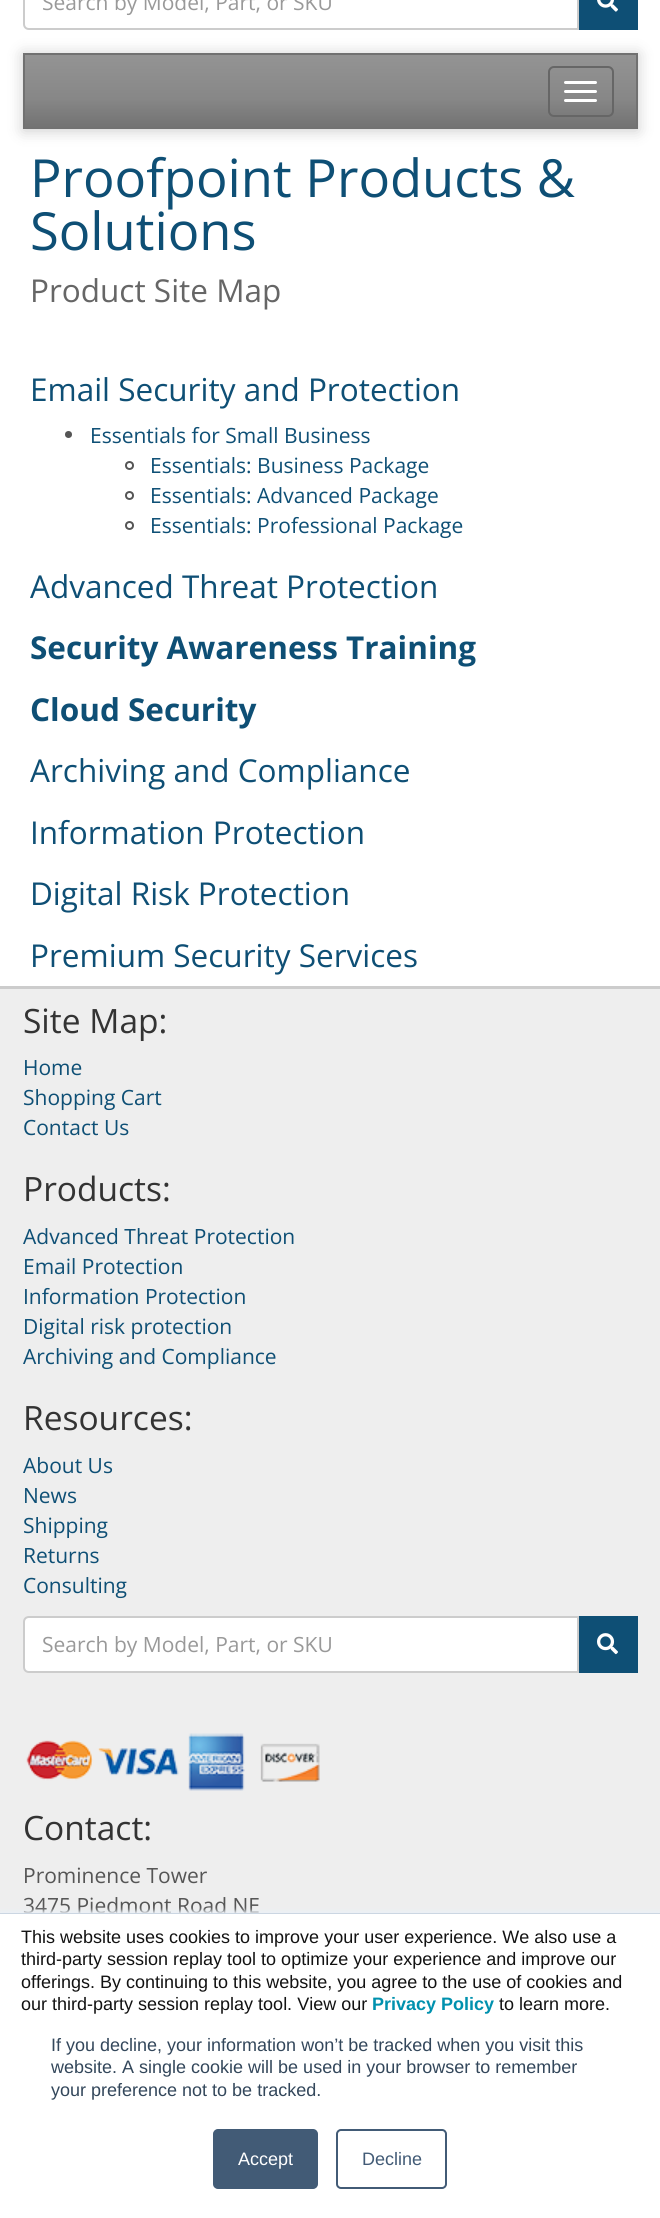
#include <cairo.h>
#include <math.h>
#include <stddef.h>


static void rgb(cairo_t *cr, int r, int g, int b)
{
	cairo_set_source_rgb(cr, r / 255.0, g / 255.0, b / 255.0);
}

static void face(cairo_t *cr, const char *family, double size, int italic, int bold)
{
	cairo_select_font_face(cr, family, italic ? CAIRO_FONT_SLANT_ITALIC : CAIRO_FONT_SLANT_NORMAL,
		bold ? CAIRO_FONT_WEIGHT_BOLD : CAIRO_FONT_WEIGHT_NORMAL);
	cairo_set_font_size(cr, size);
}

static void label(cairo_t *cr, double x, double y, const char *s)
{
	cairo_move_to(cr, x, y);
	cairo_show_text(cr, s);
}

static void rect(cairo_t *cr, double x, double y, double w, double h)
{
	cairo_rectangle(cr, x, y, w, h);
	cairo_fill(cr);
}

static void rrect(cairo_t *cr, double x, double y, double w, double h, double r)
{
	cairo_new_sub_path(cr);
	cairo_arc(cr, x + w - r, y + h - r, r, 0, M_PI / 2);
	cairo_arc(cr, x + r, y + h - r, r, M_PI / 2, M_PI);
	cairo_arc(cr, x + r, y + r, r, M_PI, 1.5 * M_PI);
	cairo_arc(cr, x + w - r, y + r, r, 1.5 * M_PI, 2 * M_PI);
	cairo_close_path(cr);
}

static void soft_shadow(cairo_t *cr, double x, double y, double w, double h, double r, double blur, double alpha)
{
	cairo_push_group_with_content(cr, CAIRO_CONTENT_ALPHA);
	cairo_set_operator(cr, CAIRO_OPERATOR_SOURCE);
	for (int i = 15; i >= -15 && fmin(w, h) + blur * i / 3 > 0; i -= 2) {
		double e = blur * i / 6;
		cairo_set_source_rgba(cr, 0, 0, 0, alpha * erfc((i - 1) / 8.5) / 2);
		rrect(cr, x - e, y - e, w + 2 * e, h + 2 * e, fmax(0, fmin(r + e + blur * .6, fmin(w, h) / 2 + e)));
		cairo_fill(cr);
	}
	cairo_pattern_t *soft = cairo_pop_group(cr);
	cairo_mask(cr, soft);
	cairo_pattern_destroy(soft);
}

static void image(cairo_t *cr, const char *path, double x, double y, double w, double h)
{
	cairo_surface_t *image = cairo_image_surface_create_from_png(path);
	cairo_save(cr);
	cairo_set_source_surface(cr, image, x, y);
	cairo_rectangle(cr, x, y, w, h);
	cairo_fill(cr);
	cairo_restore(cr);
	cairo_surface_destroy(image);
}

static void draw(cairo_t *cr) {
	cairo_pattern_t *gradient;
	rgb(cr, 255, 255, 255);
	cairo_paint(cr);
	cairo_new_path(cr);
	cairo_move_to(cr, 29, -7);
	cairo_line_to(cr, 578, -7);
	cairo_line_to(cr, 578, 29);
	cairo_line_to(cr, 29, 29);
	cairo_curve_to(cr, 26, 29, 24, 27, 24, 24);
	cairo_line_to(cr, 24, -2);
	cairo_curve_to(cr, 24, -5, 26, -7, 29, -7);
	cairo_close_path(cr);
	rgb(cr, 204, 204, 204);
	cairo_stroke(cr);
	face(cr, "Open Sans", 21, 0, 0);
	rgb(cr, 153, 153, 153);
	label(cr, 42, 10, "Search by Model, Part, or SKU");
	rgb(cr, 14, 79, 117);
	rect(cr, 579, 0, 59, 30);
	image(cr, "image0.png", 597, 0, 21, 12);
	rgb(cr, 0, 0, 0);
	soft_shadow(cr, 23, 54, 615, 77, 0, 7.5, 0.2);
	gradient = cairo_pattern_create_linear(330, 54, 330, 129);
	cairo_pattern_add_color_stop_rgba(gradient, 0, 0.58, 0.58, 0.58, 1);
	cairo_pattern_add_color_stop_rgba(gradient, 0.6, 0.529, 0.529, 0.529, 1);
	cairo_pattern_add_color_stop_rgba(gradient, 1, 0.443, 0.443, 0.443, 1);
	cairo_set_source(cr, gradient);
	cairo_pattern_destroy(gradient);
	rect(cr, 25, 55, 611, 74);
	rgb(cr, 113, 113, 113);
	rect(cr, 23, 53, 615, 2);
	rect(cr, 636, 53, 2, 76);
	rect(cr, 23, 53, 2, 76);
	rrect(cr, 549, 67, 64, 49, 5);
	rgb(cr, 102, 102, 102);
	cairo_stroke(cr);
	rgb(cr, 255, 255, 255);
	rrect(cr, 564, 81, 33, 3, 1.5);
	cairo_fill(cr);
	rrect(cr, 564, 90, 33, 3, 1.5);
	cairo_fill(cr);
	rrect(cr, 564, 99, 33, 3, 1.5);
	cairo_fill(cr);
	face(cr, "Open Sans", 52.5, 0, 0);
	rgb(cr, 14, 79, 117);
	label(cr, 30, 197, "Proofpoint Products &");
	label(cr, 30, 250, "Solutions");
	face(cr, "Open Sans", 31.5, 0, 0);
	rgb(cr, 102, 102, 102);
	label(cr, 30, 302, "Product Site Map");
	rgb(cr, 14, 79, 117);
	label(cr, 30, 401, "Email Security and Protection");
	rgb(cr, 85, 85, 85);
	cairo_new_path(cr);
	cairo_arc(cr, 68.5, 434.5, 3.5, 0, 2 * M_PI);
	cairo_fill(cr);
	face(cr, "Open Sans", 21, 0, 0);
	rgb(cr, 14, 79, 117);
	label(cr, 90, 443, "Essentials for Small Business");
	cairo_new_path(cr);
	cairo_arc(cr, 129.5, 465.5, 3.5, 0, 2 * M_PI);
	rgb(cr, 85, 85, 85);
	cairo_stroke(cr);
	rgb(cr, 14, 79, 117);
	label(cr, 150, 473, "Essentials: Business Package");
	cairo_new_path(cr);
	cairo_arc(cr, 129.5, 495.5, 3.5, 0, 2 * M_PI);
	rgb(cr, 85, 85, 85);
	cairo_stroke(cr);
	rgb(cr, 14, 79, 117);
	label(cr, 150, 503, "Essentials: Advanced Package");
	cairo_new_path(cr);
	cairo_arc(cr, 129.5, 525.5, 3.5, 0, 2 * M_PI);
	rgb(cr, 85, 85, 85);
	cairo_stroke(cr);
	rgb(cr, 14, 79, 117);
	label(cr, 150, 533, "Essentials: Professional Package");
	face(cr, "Open Sans", 31.5, 0, 0);
	label(cr, 30, 598, "Advanced Threat Protection");
	face(cr, "Open Sans", 31.5, 0, 1);
	label(cr, 30, 659, "Security Awareness Training");
	label(cr, 30, 721, "Cloud Security");
	face(cr, "Open Sans", 31.5, 0, 0);
	label(cr, 30, 782, "Archiving and Compliance");
	label(cr, 30, 844, "Information Protection");
	label(cr, 30, 905, "Digital Risk Protection");
	label(cr, 30, 967, "Premium Security Services");
	rgb(cr, 238, 238, 238);
	rect(cr, 0, 989, 660, 924);
	rgb(cr, 204, 204, 204);
	rect(cr, 0, 986, 660, 3);
	face(cr, "Open Sans", 33.5, 0, 0);
	rgb(cr, 51, 51, 51);
	label(cr, 23, 1033, "Site Map:");
	face(cr, "Open Sans", 21, 0, 0);
	rgb(cr, 14, 79, 117);
	label(cr, 23, 1075, "Home");
	label(cr, 23, 1105, "Shopping Cart");
	label(cr, 23, 1135, "Contact Us");
	face(cr, "Open Sans", 33.5, 0, 0);
	rgb(cr, 51, 51, 51);
	label(cr, 23, 1201, "Products:");
	face(cr, "Open Sans", 21, 0, 0);
	rgb(cr, 14, 79, 117);
	label(cr, 23, 1244, "Advanced Threat Protection");
	label(cr, 23, 1274, "Email Protection");
	label(cr, 23, 1304, "Information Protection");
	label(cr, 23, 1334, "Digital risk protection");
	label(cr, 23, 1364, "Archiving and Compliance");
	face(cr, "Open Sans", 33.5, 0, 0);
	rgb(cr, 51, 51, 51);
	label(cr, 23, 1430, "Resources:");
	face(cr, "Open Sans", 21, 0, 0);
	rgb(cr, 14, 79, 117);
	label(cr, 23, 1473, "About Us");
	label(cr, 23, 1503, "News");
	label(cr, 23, 1533, "Shipping");
	label(cr, 23, 1563, "Returns");
	label(cr, 23, 1593, "Consulting");
	rgb(cr, 255, 255, 255);
	cairo_new_path(cr);
	cairo_move_to(cr, 29, 1617);
	cairo_line_to(cr, 578, 1617);
	cairo_line_to(cr, 578, 1672);
	cairo_line_to(cr, 29, 1672);
	cairo_curve_to(cr, 26, 1672, 24, 1670, 24, 1667);
	cairo_line_to(cr, 24, 1622);
	cairo_curve_to(cr, 24, 1619, 26, 1617, 29, 1617);
	cairo_close_path(cr);
	cairo_fill_preserve(cr);
	rgb(cr, 204, 204, 204);
	cairo_stroke(cr);
	rgb(cr, 153, 153, 153);
	label(cr, 42, 1652, "Search by Model, Part, or SKU");
	rgb(cr, 14, 79, 117);
	rect(cr, 579, 1616, 59, 57);
	image(cr, "image1.png", 597, 1633, 21, 22);
	image(cr, "image2.png", 26, 1733, 294, 58);
	face(cr, "Open Sans", 33.5, 0, 0);
	rgb(cr, 51, 51, 51);
	label(cr, 23, 1840, "Contact:");
	face(cr, "Open Sans", 21, 0, 0);
	rgb(cr, 85, 85, 85);
	label(cr, 23, 1883, "Prominence Tower");
	label(cr, 23, 1913, "3475 Piedmont Road NE");
	rgb(cr, 234, 240, 246);
	soft_shadow(cr, 0, 1911, 660, 306, 0, 2, 1);
	rgb(cr, 203, 214, 226);
	rect(cr, 0, 1913, 660, 1);
	rgb(cr, 255, 255, 255);
	rect(cr, 0, 1914, 660, 304);
	face(cr, "Liberation Sans", 18, 0, 0);
	rgb(cr, 18, 18, 18);
	label(cr, 21, 1943, "This website uses cookies to improve your user experience. We also use a");
	label(cr, 21, 1965, "third-party session replay tool to optimize your experience and improve our");
	label(cr, 21, 1988, "offerings. By continuing to this website, you agree to the use of cookies and");
	label(cr, 21, 2010, "our third-party session replay tool. View our");
	face(cr, "Liberation Sans", 18, 0, 1);
	rgb(cr, 0, 145, 174);
	label(cr, 372, 2010, "Privacy Policy");
	face(cr, "Liberation Sans", 18, 0, 0);
	rgb(cr, 18, 18, 18);
	label(cr, 499, 2010, "to learn more.");
	rgb(cr, 51, 71, 91);
	label(cr, 51, 2051, "If you decline, your information won’t be tracked when you visit this");
	label(cr, 51, 2073, "website. A single cookie will be used in your browser to remember");
	label(cr, 51, 2096, "your preference not to be tracked.");
	rgb(cr, 66, 91, 118);
	rrect(cr, 214, 2130, 103, 58, 4);
	cairo_fill_preserve(cr);
	cairo_stroke(cr);
	rgb(cr, 255, 255, 255);
	label(cr, 238, 2165, "Accept");
	rrect(cr, 337, 2130, 109, 58, 4);
	rgb(cr, 66, 91, 118);
	cairo_stroke(cr);
	label(cr, 362, 2165, "Decline");
}

int main(void) {
	cairo_surface_t *surface = cairo_image_surface_create(CAIRO_FORMAT_RGB24, 660, 2218);
	cairo_t *cr = cairo_create(surface);
	cairo_font_options_t *options = cairo_font_options_create();
	cairo_font_options_set_hint_metrics(options, CAIRO_HINT_METRICS_OFF);
	cairo_font_options_set_hint_style(options, CAIRO_HINT_STYLE_NONE);
	cairo_set_font_options(cr, options);
	cairo_set_miter_limit(cr, 4);
	draw(cr);
	cairo_surface_write_to_png(surface, "render.png");
	cairo_font_options_destroy(options);
	cairo_destroy(cr);
	cairo_surface_destroy(surface);
	return 0;
}
